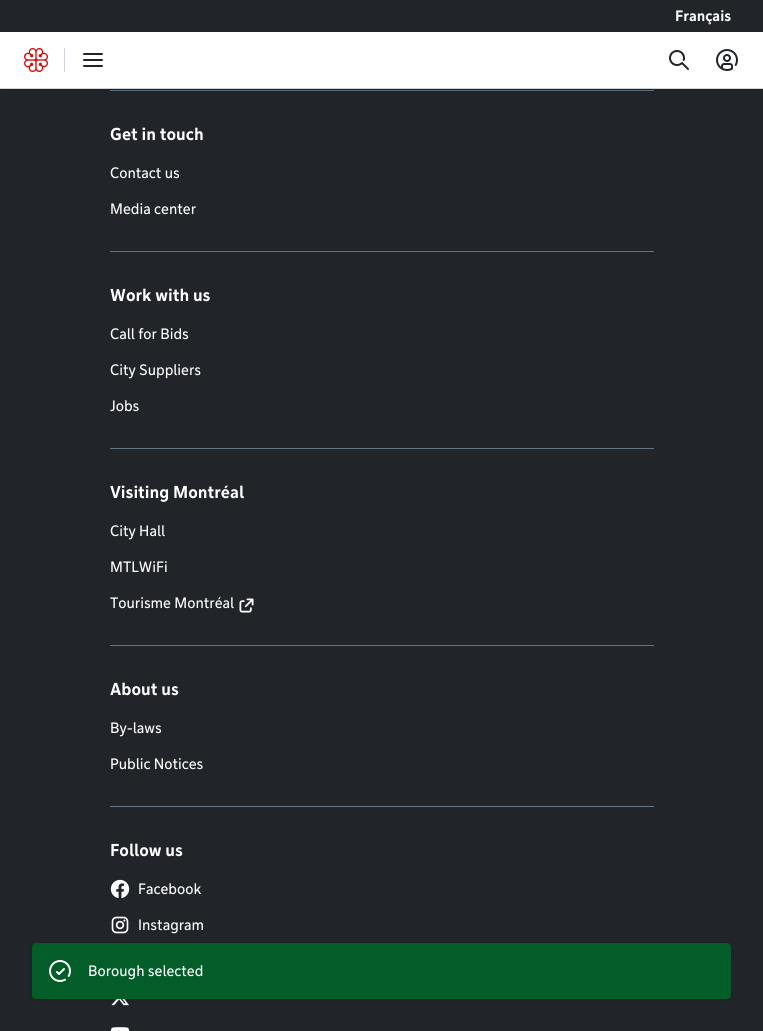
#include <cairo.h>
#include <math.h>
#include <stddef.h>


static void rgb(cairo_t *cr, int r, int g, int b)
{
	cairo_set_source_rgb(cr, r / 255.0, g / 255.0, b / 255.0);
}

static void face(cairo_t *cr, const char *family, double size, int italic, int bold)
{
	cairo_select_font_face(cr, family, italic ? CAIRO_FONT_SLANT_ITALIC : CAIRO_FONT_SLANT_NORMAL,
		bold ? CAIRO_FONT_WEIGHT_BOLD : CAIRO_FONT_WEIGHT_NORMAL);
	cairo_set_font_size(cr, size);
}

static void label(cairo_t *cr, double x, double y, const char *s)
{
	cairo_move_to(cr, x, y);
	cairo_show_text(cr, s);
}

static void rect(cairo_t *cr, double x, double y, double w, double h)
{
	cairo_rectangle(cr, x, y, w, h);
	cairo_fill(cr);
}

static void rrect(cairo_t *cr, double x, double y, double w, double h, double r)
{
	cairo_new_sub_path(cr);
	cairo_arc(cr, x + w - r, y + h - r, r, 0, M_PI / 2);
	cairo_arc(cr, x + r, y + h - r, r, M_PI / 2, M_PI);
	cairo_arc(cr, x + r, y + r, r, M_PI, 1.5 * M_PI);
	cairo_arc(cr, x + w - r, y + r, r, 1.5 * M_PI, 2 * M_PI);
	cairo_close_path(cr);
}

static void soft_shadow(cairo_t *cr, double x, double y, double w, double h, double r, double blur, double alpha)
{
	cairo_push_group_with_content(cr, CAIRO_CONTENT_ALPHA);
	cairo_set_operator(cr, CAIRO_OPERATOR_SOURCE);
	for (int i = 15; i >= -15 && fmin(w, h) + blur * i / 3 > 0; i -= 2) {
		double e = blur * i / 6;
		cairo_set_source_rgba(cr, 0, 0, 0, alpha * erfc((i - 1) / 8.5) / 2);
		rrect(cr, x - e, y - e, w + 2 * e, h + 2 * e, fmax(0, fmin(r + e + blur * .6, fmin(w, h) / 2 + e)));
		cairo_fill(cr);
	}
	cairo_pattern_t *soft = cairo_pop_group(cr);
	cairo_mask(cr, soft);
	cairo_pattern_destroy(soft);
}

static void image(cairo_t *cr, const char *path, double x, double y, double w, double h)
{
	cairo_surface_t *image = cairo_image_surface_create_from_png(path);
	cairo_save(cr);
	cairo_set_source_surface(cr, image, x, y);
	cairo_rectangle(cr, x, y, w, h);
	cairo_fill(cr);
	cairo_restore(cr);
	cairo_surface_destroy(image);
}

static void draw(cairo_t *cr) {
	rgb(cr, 33, 37, 41);
	cairo_paint(cr);
	face(cr, "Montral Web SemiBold", 14, 0, 0);
	rgb(cr, 255, 255, 255);
	label(cr, 675, 21, "Français");
	rgb(cr, 99, 115, 129);
	rect(cr, 110, 90, 544, 1);
	rgb(cr, 0, 0, 0);
	soft_shadow(cr, 8, 44, 747, 41, 0, 4, 0.5);
	rgb(cr, 255, 255, 255);
	rect(cr, 0, 32, 763, 56);
	rgb(cr, 206, 212, 218);
	rect(cr, 0, 88, 763, 1);
	image(cr, "image0.png", 24, 48, 24, 24);
	rect(cr, 64, 48, 1, 24);
	image(cr, "image1.png", 83, 53, 20, 14);
	image(cr, "image2.png", 669, 50, 20, 20);
	image(cr, "image3.png", 716, 49, 22, 22);
	face(cr, "Montral Web SemiBold", 16, 0, 0);
	rgb(cr, 255, 255, 255);
	label(cr, 110, 140, "Get in touch");
	face(cr, "Montral Web", 14, 0, 0);
	label(cr, 110, 178, "Contact us");
	label(cr, 110, 214, "Media center");
	rgb(cr, 99, 115, 129);
	rect(cr, 110, 251, 544, 1);
	face(cr, "Montral Web SemiBold", 16, 0, 0);
	rgb(cr, 255, 255, 255);
	label(cr, 110, 301, "Work with us");
	face(cr, "Montral Web", 14, 0, 0);
	label(cr, 110, 339, "Call for Bids");
	label(cr, 110, 375, "City Suppliers");
	label(cr, 110, 411, "Jobs");
	rgb(cr, 99, 115, 129);
	rect(cr, 110, 448, 544, 1);
	face(cr, "Montral Web SemiBold", 16, 0, 0);
	rgb(cr, 255, 255, 255);
	label(cr, 110, 498, "Visiting Montréal");
	face(cr, "Montral Web", 14, 0, 0);
	label(cr, 110, 536, "City Hall");
	label(cr, 110, 572, "MTLWiFi");
	label(cr, 110, 608, "Tourisme Montréal");
	image(cr, "image4.png", 239, 598, 15, 15);
	rgb(cr, 99, 115, 129);
	rect(cr, 110, 645, 544, 1);
	face(cr, "Montral Web SemiBold", 16, 0, 0);
	rgb(cr, 255, 255, 255);
	label(cr, 110, 695, "About us");
	face(cr, "Montral Web", 14, 0, 0);
	label(cr, 110, 733, "By-laws");
	label(cr, 110, 769, "Public Notices");
	rgb(cr, 99, 115, 129);
	rect(cr, 110, 806, 544, 1);
	face(cr, "Montral Web SemiBold", 16, 0, 0);
	rgb(cr, 255, 255, 255);
	label(cr, 110, 856, "Follow us");
	image(cr, "image5.png", 110, 879, 20, 20);
	face(cr, "Montral Web", 14, 0, 0);
	label(cr, 138, 894, "Facebook");
	image(cr, "image6.png", 111, 916, 18, 18);
	label(cr, 138, 930, "Instagram");
	image(cr, "image7.png", 111, 999, 18, 7);
	image(cr, "image8.png", 110, 1027, 20, 4);
	rgb(cr, 0, 0, 0);
	soft_shadow(cr, 32, 945, 699, 56, 4, 4, 0.1);
	rgb(cr, 2, 93, 41);
	rrect(cr, 32, 943, 699, 56, 4);
	cairo_fill(cr);
	image(cr, "image9.png", 49, 960, 22, 22);
	rgb(cr, 255, 255, 255);
	label(cr, 88, 976, "Borough selected");
}

int main(void) {
	cairo_surface_t *surface = cairo_image_surface_create(CAIRO_FORMAT_RGB24, 763, 1031);
	cairo_t *cr = cairo_create(surface);
	cairo_font_options_t *options = cairo_font_options_create();
	cairo_font_options_set_hint_metrics(options, CAIRO_HINT_METRICS_OFF);
	cairo_font_options_set_hint_style(options, CAIRO_HINT_STYLE_NONE);
	cairo_set_font_options(cr, options);
	cairo_set_miter_limit(cr, 4);
	draw(cr);
	cairo_surface_write_to_png(surface, "render.png");
	cairo_font_options_destroy(options);
	cairo_destroy(cr);
	cairo_surface_destroy(surface);
	return 0;
}
